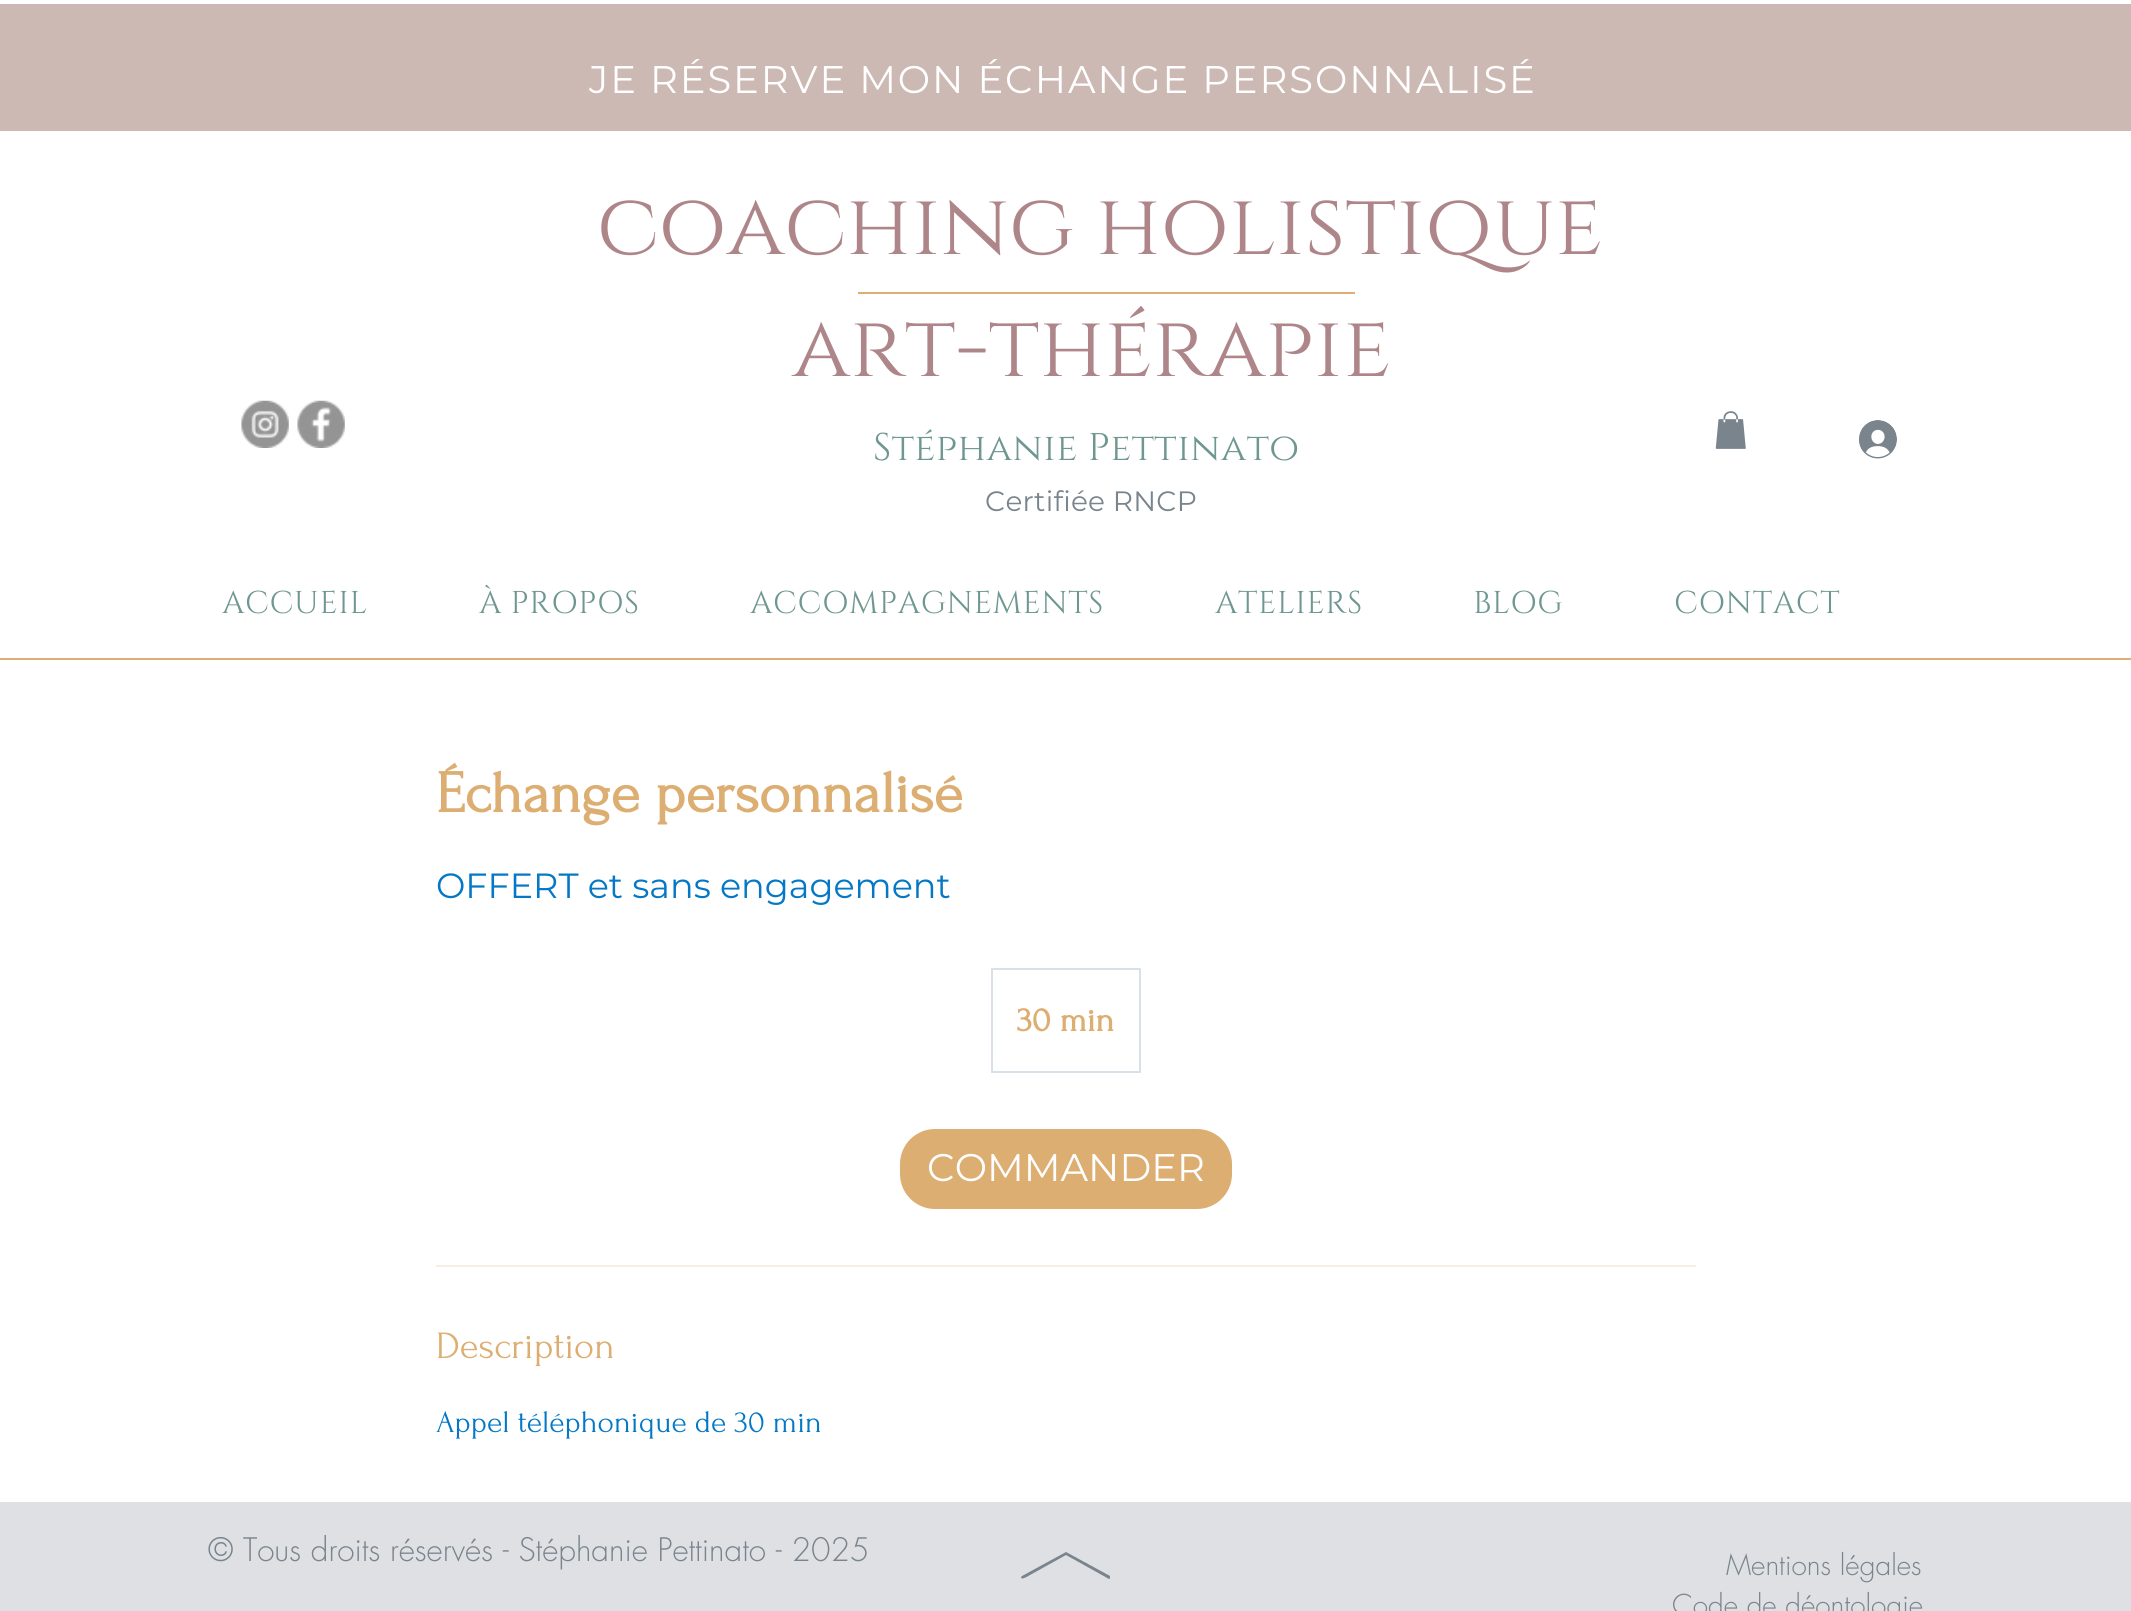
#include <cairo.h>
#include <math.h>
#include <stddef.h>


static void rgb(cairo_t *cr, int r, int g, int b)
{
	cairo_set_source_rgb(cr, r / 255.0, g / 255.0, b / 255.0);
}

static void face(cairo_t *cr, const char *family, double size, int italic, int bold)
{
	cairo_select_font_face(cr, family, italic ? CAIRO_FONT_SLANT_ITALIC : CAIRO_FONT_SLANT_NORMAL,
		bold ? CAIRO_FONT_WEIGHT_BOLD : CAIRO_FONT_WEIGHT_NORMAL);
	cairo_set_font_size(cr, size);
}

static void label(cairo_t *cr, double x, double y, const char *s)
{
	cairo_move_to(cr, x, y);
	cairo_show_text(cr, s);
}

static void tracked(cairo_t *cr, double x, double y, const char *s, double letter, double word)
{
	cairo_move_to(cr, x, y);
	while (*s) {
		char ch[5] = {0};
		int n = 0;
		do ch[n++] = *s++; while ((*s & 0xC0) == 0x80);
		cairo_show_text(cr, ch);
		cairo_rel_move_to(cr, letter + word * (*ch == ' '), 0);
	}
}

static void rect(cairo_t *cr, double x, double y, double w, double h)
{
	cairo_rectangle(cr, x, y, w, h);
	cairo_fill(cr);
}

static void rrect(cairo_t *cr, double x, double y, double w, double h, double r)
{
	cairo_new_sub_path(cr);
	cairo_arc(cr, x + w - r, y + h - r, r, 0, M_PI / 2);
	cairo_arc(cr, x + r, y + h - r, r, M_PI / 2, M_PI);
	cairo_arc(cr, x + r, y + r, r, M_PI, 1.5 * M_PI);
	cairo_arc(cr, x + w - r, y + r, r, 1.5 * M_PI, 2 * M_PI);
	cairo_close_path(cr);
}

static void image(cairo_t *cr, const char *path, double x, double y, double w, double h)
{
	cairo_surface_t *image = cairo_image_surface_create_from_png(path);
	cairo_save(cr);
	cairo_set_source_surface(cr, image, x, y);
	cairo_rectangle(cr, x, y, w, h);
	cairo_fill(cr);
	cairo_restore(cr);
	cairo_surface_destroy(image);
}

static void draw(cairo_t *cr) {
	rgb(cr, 255, 255, 255);
	cairo_paint(cr);
	rgb(cr, 205, 185, 179);
	rect(cr, 0, 4, 2131, 127);
	face(cr, "Montserrat", 38.5, 0, 0);
	rgb(cr, 255, 255, 255);
	tracked(cr, 589, 93, "JE RÉSERVE MON ÉCHANGE PERSONNALISÉ", 1.95, 0);
	face(cr, "Cinzel", 87.5, 0, 0);
	rgb(cr, 174, 134, 138);
	label(cr, 597, 254, "coaching holistique");
	rgb(cr, 221, 174, 114);
	rect(cr, 858, 292, 497, 2);
	rgb(cr, 174, 134, 138);
	label(cr, 792, 376, "art-thérapie");
	image(cr, "image0.png", 241, 400, 48, 48);
	image(cr, "image1.png", 297, 400, 48, 48);
	face(cr, "Cinzel", 38.5, 0, 0);
	rgb(cr, 111, 151, 145);
	tracked(cr, 873, 460, "Stéphanie Pettinato", 0.4, 0);
	face(cr, "Montserrat", 28, 0, 0);
	rgb(cr, 121, 132, 141);
	tracked(cr, 985, 511, "Certifiée RNCP", 0.25, 0);
	image(cr, "image2.png", 1715, 411, 31, 38);
	image(cr, "image3.png", 1859, 420, 38, 39);
	face(cr, "Cinzel", 31.5, 0, 0);
	rgb(cr, 111, 151, 145);
	tracked(cr, 222, 613, "ACCUEIL", 0.6, 0);
	tracked(cr, 479, 613, "À PROPOS", 0.6, 0);
	tracked(cr, 750, 613, "ACCOMPAGNEMENTS", 0.6, 0);
	tracked(cr, 1215, 613, "ATELIERS", 0.6, 0);
	tracked(cr, 1473, 613, "BLOG", 0.6, 0);
	tracked(cr, 1674, 613, "CONTACT", 0.6, 0);
	rgb(cr, 221, 174, 114);
	rect(cr, 0, 658, 2131, 2);
	face(cr, "Forum", 59.5, 0, 1);
	label(cr, 436, 812, "Échange personnalisé");
	face(cr, "Montserrat", 35, 0, 0);
	rgb(cr, 4, 120, 198);
	label(cr, 436, 898, "OFFERT et sans engagement");
	cairo_rectangle(cr, 992, 969, 148, 103);
	rgb(cr, 217, 225, 232);
	cairo_stroke(cr);
	face(cr, "Forum", 35, 0, 1);
	rgb(cr, 221, 174, 114);
	label(cr, 1017, 1031, "30 min");
	rrect(cr, 900, 1129, 332, 80, 35);
	cairo_fill(cr);
	face(cr, "Montserrat", 38.5, 0, 0);
	rgb(cr, 255, 255, 255);
	label(cr, 927, 1181, "COMMANDER");
	rgb(cr, 248, 239, 227);
	rect(cr, 436, 1265, 1260, 2);
	face(cr, "Forum", 38.5, 0, 0);
	rgb(cr, 221, 174, 114);
	label(cr, 436, 1358, "Description");
	face(cr, "Forum", 31.5, 0, 0);
	rgb(cr, 4, 120, 198);
	label(cr, 436, 1432, "Appel téléphonique de 30 min");
	rgb(cr, 222, 224, 227);
	rect(cr, 0, 1502, 2131, 109);
	face(cr, "futura Light", 31.5, 0, 0);
	rgb(cr, 121, 132, 141);
	label(cr, 208, 1561, "© Tous droits réservés - Stéphanie Pettinato - 2025");
	cairo_new_path(cr);
	cairo_move_to(cr, 1021, 1577);
	cairo_line_to(cr, 1022, 1576);
	cairo_line_to(cr, 1066, 1552);
	cairo_line_to(cr, 1110, 1576);
	cairo_line_to(cr, 1110, 1577);
	cairo_curve_to(cr, 1110, 1578, 1110, 1579, 1109, 1579);
	cairo_line_to(cr, 1066, 1555);
	cairo_line_to(cr, 1030, 1575);
	cairo_curve_to(cr, 1025, 1578, 1021, 1580, 1021, 1577);
	cairo_close_path(cr);
	cairo_fill(cr);
	face(cr, "futura Light", 28, 0, 0);
	label(cr, 1726, 1575, "Mentions légales");
	label(cr, 1672, 1615, "Code de déontologie");
}

int main(void) {
	cairo_surface_t *surface = cairo_image_surface_create(CAIRO_FORMAT_RGB24, 2131, 1611);
	cairo_t *cr = cairo_create(surface);
	cairo_font_options_t *options = cairo_font_options_create();
	cairo_font_options_set_hint_metrics(options, CAIRO_HINT_METRICS_OFF);
	cairo_font_options_set_hint_style(options, CAIRO_HINT_STYLE_NONE);
	cairo_set_font_options(cr, options);
	cairo_set_miter_limit(cr, 4);
	draw(cr);
	cairo_surface_write_to_png(surface, "render.png");
	cairo_font_options_destroy(options);
	cairo_destroy(cr);
	cairo_surface_destroy(surface);
	return 0;
}
